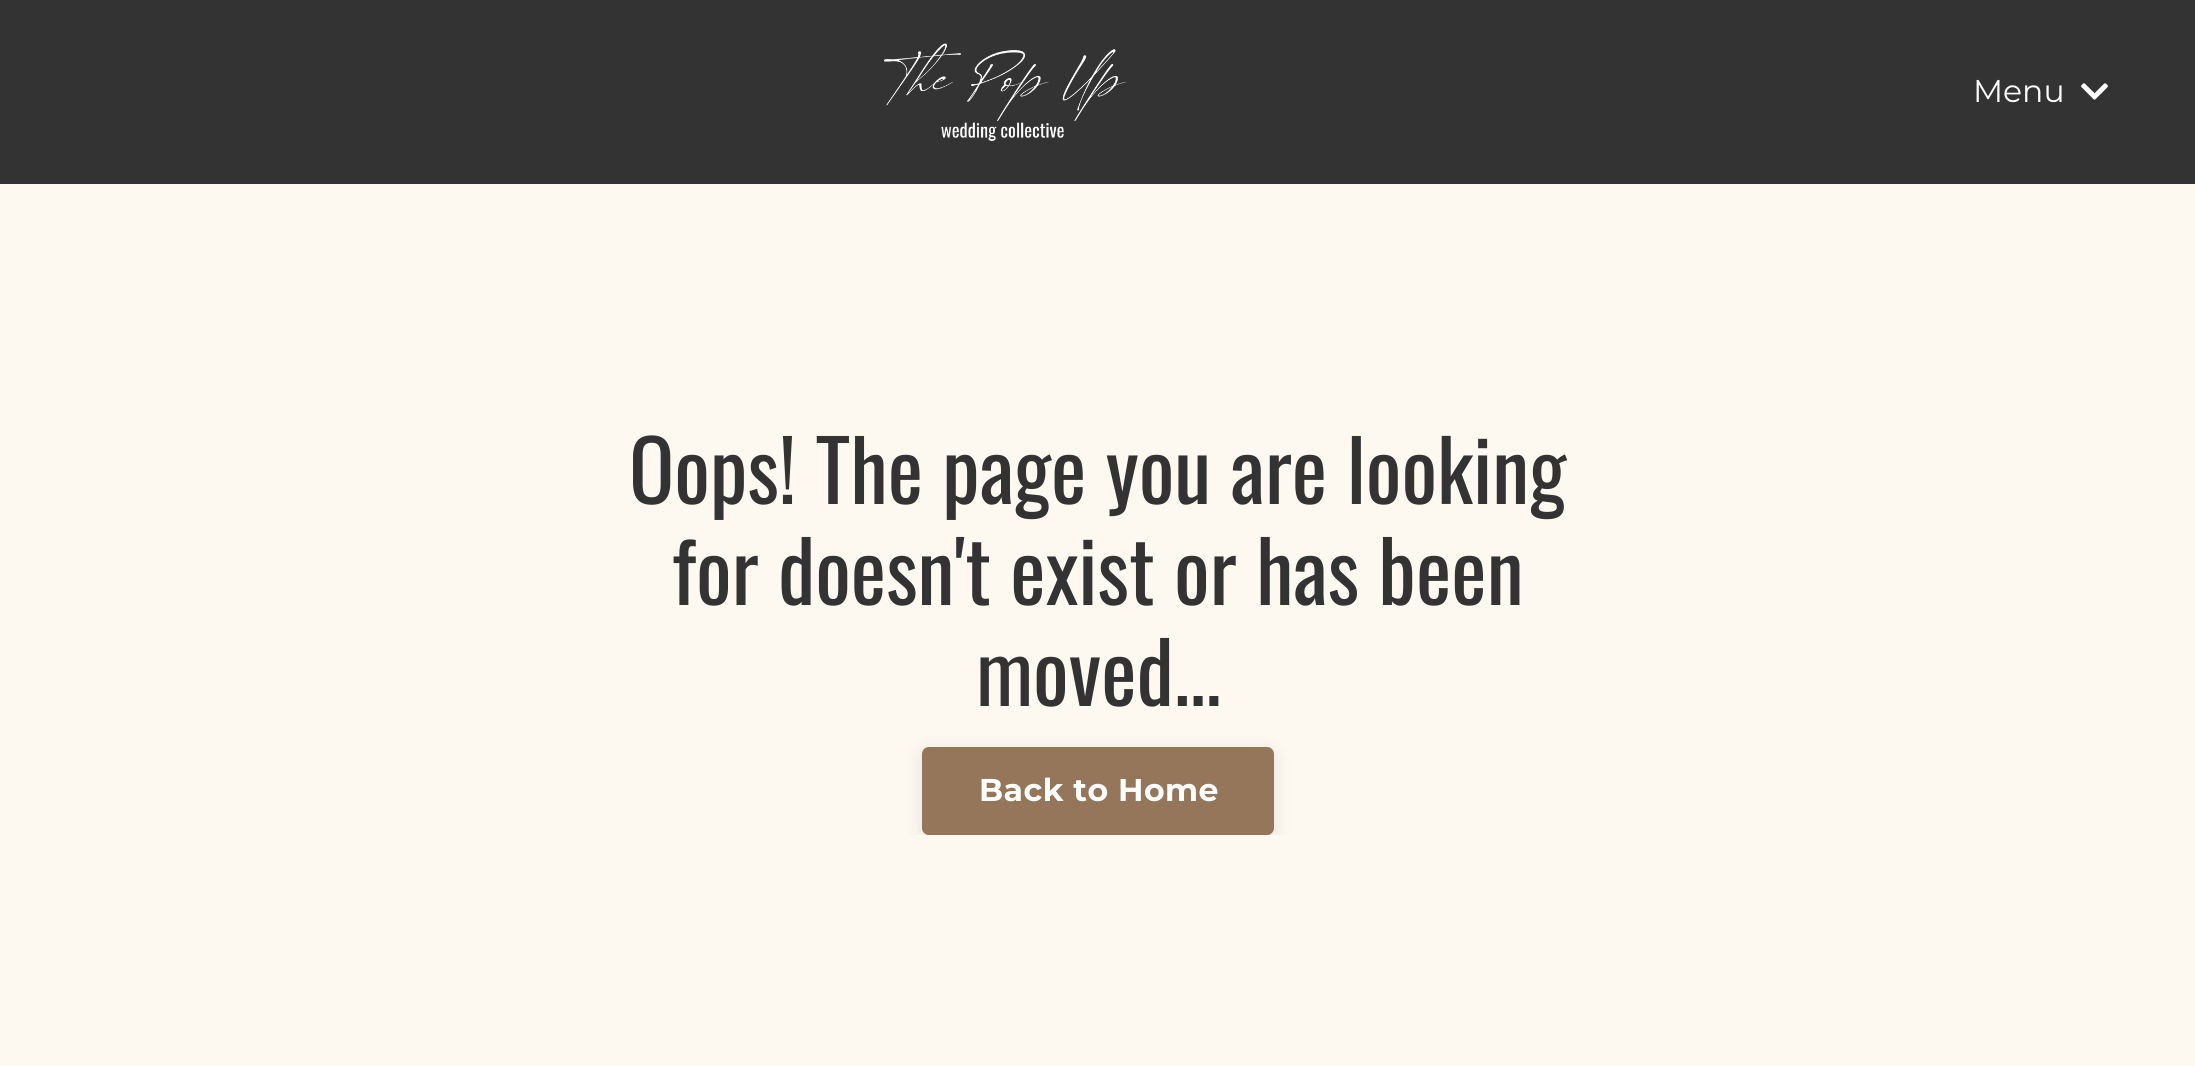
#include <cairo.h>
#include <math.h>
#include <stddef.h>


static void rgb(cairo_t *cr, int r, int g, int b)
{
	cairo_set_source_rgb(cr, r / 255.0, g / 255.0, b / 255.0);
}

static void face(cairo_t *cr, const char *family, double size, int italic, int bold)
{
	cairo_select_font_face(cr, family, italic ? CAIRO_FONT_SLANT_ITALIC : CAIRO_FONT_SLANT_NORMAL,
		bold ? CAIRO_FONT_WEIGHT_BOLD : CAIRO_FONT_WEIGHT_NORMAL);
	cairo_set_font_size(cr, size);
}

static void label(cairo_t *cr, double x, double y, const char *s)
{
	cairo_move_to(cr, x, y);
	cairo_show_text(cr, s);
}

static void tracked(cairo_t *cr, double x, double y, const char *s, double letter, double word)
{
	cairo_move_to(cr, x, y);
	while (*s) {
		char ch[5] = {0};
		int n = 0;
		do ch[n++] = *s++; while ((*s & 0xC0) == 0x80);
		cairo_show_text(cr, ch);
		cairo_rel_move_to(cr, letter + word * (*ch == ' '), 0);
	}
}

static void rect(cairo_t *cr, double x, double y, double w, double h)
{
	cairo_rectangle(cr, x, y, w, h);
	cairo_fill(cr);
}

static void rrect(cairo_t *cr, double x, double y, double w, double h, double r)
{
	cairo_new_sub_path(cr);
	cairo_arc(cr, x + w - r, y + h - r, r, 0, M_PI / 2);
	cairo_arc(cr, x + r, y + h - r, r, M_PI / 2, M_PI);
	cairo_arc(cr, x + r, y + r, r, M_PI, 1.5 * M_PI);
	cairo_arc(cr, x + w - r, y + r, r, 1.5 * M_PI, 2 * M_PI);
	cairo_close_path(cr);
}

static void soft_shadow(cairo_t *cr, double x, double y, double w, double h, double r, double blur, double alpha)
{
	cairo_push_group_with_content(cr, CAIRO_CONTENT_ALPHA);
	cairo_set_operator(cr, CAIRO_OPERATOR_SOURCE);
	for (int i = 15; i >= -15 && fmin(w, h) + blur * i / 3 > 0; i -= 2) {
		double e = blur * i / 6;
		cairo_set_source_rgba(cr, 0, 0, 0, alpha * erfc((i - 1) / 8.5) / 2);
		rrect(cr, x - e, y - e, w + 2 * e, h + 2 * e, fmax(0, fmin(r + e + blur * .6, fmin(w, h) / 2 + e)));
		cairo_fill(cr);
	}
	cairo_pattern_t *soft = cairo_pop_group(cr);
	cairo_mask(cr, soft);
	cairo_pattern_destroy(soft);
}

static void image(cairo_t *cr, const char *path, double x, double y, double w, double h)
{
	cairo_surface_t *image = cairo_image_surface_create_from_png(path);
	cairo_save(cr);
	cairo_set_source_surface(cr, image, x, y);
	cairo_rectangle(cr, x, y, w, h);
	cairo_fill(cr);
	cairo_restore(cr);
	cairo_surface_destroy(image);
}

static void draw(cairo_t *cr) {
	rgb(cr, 253, 248, 240);
	cairo_paint(cr);
	rgb(cr, 51, 51, 51);
	rect(cr, 0, 0, 2195, 184);
	image(cr, "image0.png", 884, 43, 242, 98);
	face(cr, "Montserrat", 31.5, 0, 0);
	rgb(cr, 255, 255, 255);
	label(cr, 1973, 102, "Menu");
	image(cr, "image1.png", 2081, 83, 27, 17);
	face(cr, "Oswald", 84, 0, 0);
	rgb(cr, 51, 51, 51);
	label(cr, 629, 504, "Oops! The page you are looking");
	label(cr, 672, 605, "for doesn't exist or has been");
	label(cr, 976, 706, "moved...");
	cairo_save(cr);
	rrect(cr, 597, 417, 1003, 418, 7);
	cairo_clip(cr);
	rgb(cr, 0, 0, 0);
	soft_shadow(cr, 922, 751, 352, 87, 7, 9, 0.1);
	cairo_restore(cr);
	rgb(cr, 150, 118, 90);
	rrect(cr, 924, 749, 348, 84, 5);
	cairo_fill_preserve(cr);
	cairo_set_line_width(cr, 4);
	cairo_stroke(cr);
	face(cr, "Montserrat", 31.5, 0, 1);
	rgb(cr, 255, 255, 255);
	tracked(cr, 979, 801, "Back to Home", 0.5, 0);
}

int main(void) {
	cairo_surface_t *surface = cairo_image_surface_create(CAIRO_FORMAT_RGB24, 2195, 1066);
	cairo_t *cr = cairo_create(surface);
	cairo_font_options_t *options = cairo_font_options_create();
	cairo_font_options_set_hint_metrics(options, CAIRO_HINT_METRICS_OFF);
	cairo_font_options_set_hint_style(options, CAIRO_HINT_STYLE_NONE);
	cairo_set_font_options(cr, options);
	cairo_set_miter_limit(cr, 4);
	draw(cr);
	cairo_surface_write_to_png(surface, "render.png");
	cairo_font_options_destroy(options);
	cairo_destroy(cr);
	cairo_surface_destroy(surface);
	return 0;
}
